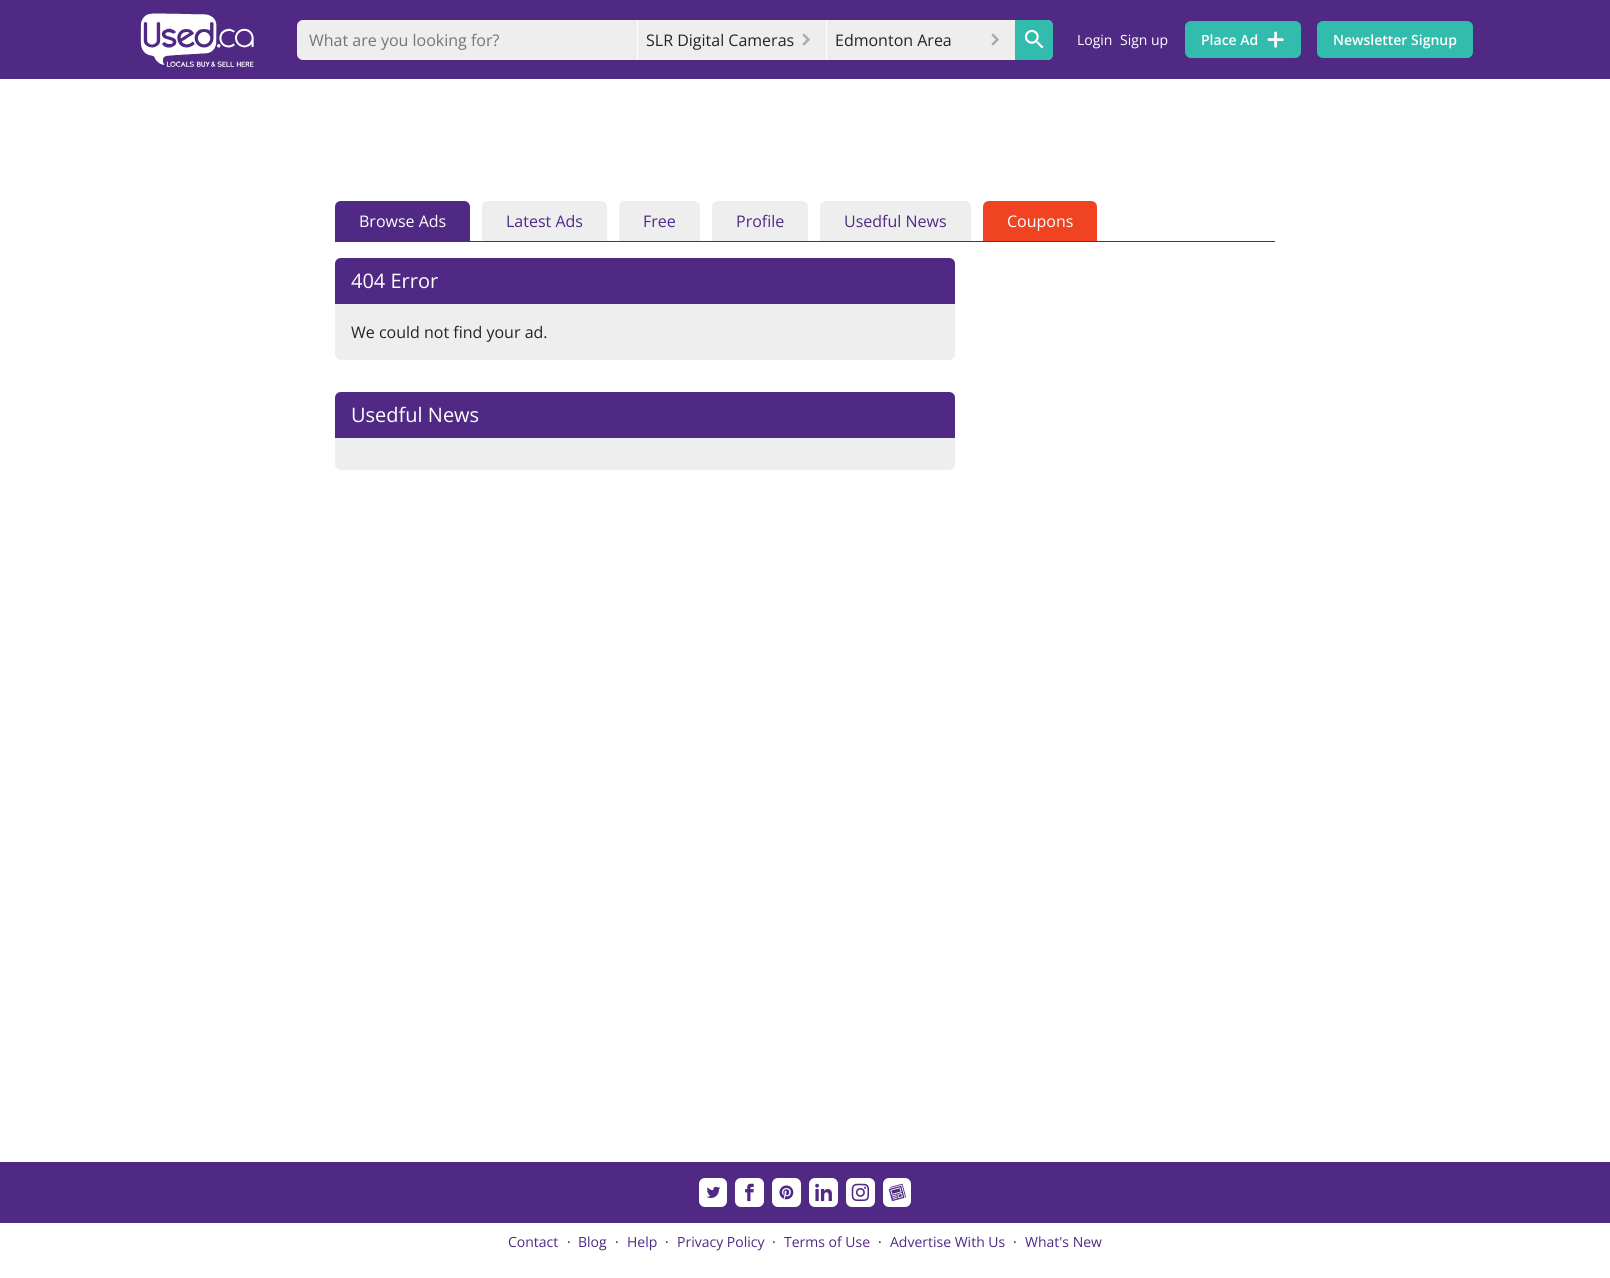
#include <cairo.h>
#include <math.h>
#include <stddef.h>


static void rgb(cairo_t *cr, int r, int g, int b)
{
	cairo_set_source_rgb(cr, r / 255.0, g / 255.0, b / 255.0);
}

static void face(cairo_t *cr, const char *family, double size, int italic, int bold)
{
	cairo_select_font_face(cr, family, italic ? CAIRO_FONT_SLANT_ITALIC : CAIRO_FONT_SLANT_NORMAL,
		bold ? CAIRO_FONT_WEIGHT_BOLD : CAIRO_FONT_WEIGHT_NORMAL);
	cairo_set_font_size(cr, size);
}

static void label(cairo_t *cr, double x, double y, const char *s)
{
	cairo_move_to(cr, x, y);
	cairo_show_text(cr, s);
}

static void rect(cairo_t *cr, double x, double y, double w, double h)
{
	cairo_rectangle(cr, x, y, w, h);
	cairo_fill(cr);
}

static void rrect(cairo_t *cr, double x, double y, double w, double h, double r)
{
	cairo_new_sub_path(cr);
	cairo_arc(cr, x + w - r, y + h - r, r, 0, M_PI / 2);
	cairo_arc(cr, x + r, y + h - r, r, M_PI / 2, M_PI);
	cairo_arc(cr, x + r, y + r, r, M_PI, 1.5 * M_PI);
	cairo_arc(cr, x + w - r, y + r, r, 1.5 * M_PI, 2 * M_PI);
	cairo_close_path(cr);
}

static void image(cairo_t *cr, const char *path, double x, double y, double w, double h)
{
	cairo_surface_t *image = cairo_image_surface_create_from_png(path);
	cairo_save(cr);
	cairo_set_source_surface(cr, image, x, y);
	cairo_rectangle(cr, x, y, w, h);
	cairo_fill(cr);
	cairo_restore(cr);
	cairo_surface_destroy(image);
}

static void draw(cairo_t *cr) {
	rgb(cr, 255, 255, 255);
	cairo_paint(cr);
	rgb(cr, 79, 41, 132);
	rect(cr, 0, 0, 1610, 79);
	image(cr, "image0.png", 140, 13, 114, 54);
	rgb(cr, 238, 238, 238);
	rrect(cr, 297, 20, 756, 40, 6);
	cairo_fill(cr);
	face(cr, "Open Sans", 16, 0, 0);
	rgb(cr, 117, 117, 117);
	label(cr, 309, 46, "What are you looking for?");
	rgb(cr, 255, 255, 255);
	rect(cr, 637, 20, 1, 40);
	rgb(cr, 33, 37, 41);
	label(cr, 646, 46, "SLR Digital Cameras");
	image(cr, "image1.png", 802, 33, 8, 13);
	rgb(cr, 255, 255, 255);
	rect(cr, 826, 20, 1, 40);
	rgb(cr, 33, 37, 41);
	label(cr, 835, 46, "Edmonton Area");
	image(cr, "image1.png", 991, 33, 8, 13);
	rgb(cr, 50, 188, 173);
	cairo_new_path(cr);
	cairo_move_to(cr, 1015, 20);
	cairo_line_to(cr, 1047, 20);
	cairo_curve_to(cr, 1050.5, 20, 1053, 22.5, 1053, 26);
	cairo_line_to(cr, 1053, 54);
	cairo_curve_to(cr, 1053, 57.5, 1050.5, 60, 1047, 60);
	cairo_line_to(cr, 1015, 60);
	cairo_close_path(cr);
	cairo_fill(cr);
	image(cr, "image2.png", 1024, 29, 20, 20);
	face(cr, "Open Sans", 14, 0, 0);
	rgb(cr, 255, 255, 255);
	label(cr, 1077, 45, "Login");
	label(cr, 1120, 45, "Sign up");
	rgb(cr, 50, 188, 173);
	rrect(cr, 1185, 21, 116, 37, 6);
	cairo_fill(cr);
	face(cr, "Open Sans SemiBold", 14, 0, 0);
	rgb(cr, 255, 255, 255);
	label(cr, 1201, 45, "Place Ad");
	image(cr, "image3.png", 1267, 31, 17, 17);
	rgb(cr, 50, 188, 173);
	rrect(cr, 1317, 21, 156, 37, 6);
	cairo_fill(cr);
	rgb(cr, 255, 255, 255);
	label(cr, 1333, 45, "Newsletter Signup");
	rgb(cr, 79, 41, 132);
	rect(cr, 335, 241, 940, 1);
	cairo_new_path(cr);
	cairo_move_to(cr, 341, 201);
	cairo_line_to(cr, 464, 201);
	cairo_curve_to(cr, 467.5, 201, 470, 203.5, 470, 207);
	cairo_line_to(cr, 470, 241);
	cairo_line_to(cr, 335, 241);
	cairo_line_to(cr, 335, 207);
	cairo_curve_to(cr, 335, 203.5, 337.5, 201, 341, 201);
	cairo_close_path(cr);
	cairo_fill(cr);
	face(cr, "Open Sans", 16, 0, 0);
	rgb(cr, 255, 255, 255);
	label(cr, 359, 227, "Browse Ads");
	rgb(cr, 238, 238, 238);
	cairo_new_path(cr);
	cairo_move_to(cr, 488, 201);
	cairo_line_to(cr, 601, 201);
	cairo_curve_to(cr, 604.5, 201, 607, 203.5, 607, 207);
	cairo_line_to(cr, 607, 241);
	cairo_line_to(cr, 482, 241);
	cairo_line_to(cr, 482, 207);
	cairo_curve_to(cr, 482, 203.5, 484.5, 201, 488, 201);
	cairo_close_path(cr);
	cairo_fill(cr);
	rgb(cr, 79, 41, 132);
	label(cr, 506, 227, "Latest Ads");
	rgb(cr, 238, 238, 238);
	cairo_new_path(cr);
	cairo_move_to(cr, 625, 201);
	cairo_line_to(cr, 694, 201);
	cairo_curve_to(cr, 697.5, 201, 700, 203.5, 700, 207);
	cairo_line_to(cr, 700, 241);
	cairo_line_to(cr, 619, 241);
	cairo_line_to(cr, 619, 207);
	cairo_curve_to(cr, 619, 203.5, 621.5, 201, 625, 201);
	cairo_close_path(cr);
	cairo_fill(cr);
	rgb(cr, 79, 41, 132);
	label(cr, 643, 227, "Free");
	rgb(cr, 238, 238, 238);
	cairo_new_path(cr);
	cairo_move_to(cr, 718, 201);
	cairo_line_to(cr, 802, 201);
	cairo_curve_to(cr, 805.5, 201, 808, 203.5, 808, 207);
	cairo_line_to(cr, 808, 241);
	cairo_line_to(cr, 712, 241);
	cairo_line_to(cr, 712, 207);
	cairo_curve_to(cr, 712, 203.5, 714.5, 201, 718, 201);
	cairo_close_path(cr);
	cairo_fill(cr);
	rgb(cr, 79, 41, 132);
	label(cr, 736, 227, "Profile");
	rgb(cr, 238, 238, 238);
	cairo_new_path(cr);
	cairo_move_to(cr, 826, 201);
	cairo_line_to(cr, 965, 201);
	cairo_curve_to(cr, 968.5, 201, 971, 203.5, 971, 207);
	cairo_line_to(cr, 971, 241);
	cairo_line_to(cr, 820, 241);
	cairo_line_to(cr, 820, 207);
	cairo_curve_to(cr, 820, 203.5, 822.5, 201, 826, 201);
	cairo_close_path(cr);
	cairo_fill(cr);
	rgb(cr, 79, 41, 132);
	label(cr, 844, 227, "Usedful News");
	rgb(cr, 239, 67, 33);
	cairo_new_path(cr);
	cairo_move_to(cr, 989, 201);
	cairo_line_to(cr, 1091, 201);
	cairo_curve_to(cr, 1094.5, 201, 1097, 203.5, 1097, 207);
	cairo_line_to(cr, 1097, 241);
	cairo_line_to(cr, 983, 241);
	cairo_line_to(cr, 983, 207);
	cairo_curve_to(cr, 983, 203.5, 985.5, 201, 989, 201);
	cairo_close_path(cr);
	cairo_fill(cr);
	rgb(cr, 255, 255, 255);
	label(cr, 1007, 227, "Coupons");
	rgb(cr, 238, 238, 238);
	rrect(cr, 335, 258, 620, 102, 6);
	cairo_fill(cr);
	rgb(cr, 79, 41, 132);
	cairo_new_path(cr);
	cairo_move_to(cr, 341, 258);
	cairo_line_to(cr, 949, 258);
	cairo_curve_to(cr, 952.5, 258, 955, 260.5, 955, 264);
	cairo_line_to(cr, 955, 304);
	cairo_line_to(cr, 335, 304);
	cairo_line_to(cr, 335, 264);
	cairo_curve_to(cr, 335, 260.5, 337.5, 258, 341, 258);
	cairo_close_path(cr);
	cairo_fill(cr);
	face(cr, "Open Sans", 20, 0, 0);
	rgb(cr, 255, 255, 255);
	label(cr, 351, 288, "404 Error");
	face(cr, "Open Sans", 16, 0, 0);
	rgb(cr, 33, 37, 41);
	label(cr, 351, 338, "We could not find your ad.");
	rgb(cr, 238, 238, 238);
	rrect(cr, 335, 392, 620, 78, 6);
	cairo_fill(cr);
	rgb(cr, 79, 41, 132);
	cairo_new_path(cr);
	cairo_move_to(cr, 341, 392);
	cairo_line_to(cr, 949, 392);
	cairo_curve_to(cr, 952.5, 392, 955, 394.5, 955, 398);
	cairo_line_to(cr, 955, 438);
	cairo_line_to(cr, 335, 438);
	cairo_line_to(cr, 335, 398);
	cairo_curve_to(cr, 335, 394.5, 337.5, 392, 341, 392);
	cairo_close_path(cr);
	cairo_fill(cr);
	face(cr, "Open Sans", 20, 0, 0);
	rgb(cr, 255, 255, 255);
	label(cr, 351, 422, "Usedful News");
	rgb(cr, 79, 41, 132);
	rect(cr, 0, 1162, 1610, 61);
	rgb(cr, 255, 255, 255);
	rrect(cr, 699, 1178, 28, 29, 6);
	cairo_fill(cr);
	image(cr, "image4.png", 706, 1186, 15, 12);
	rrect(cr, 735, 1178, 29, 29, 6);
	cairo_fill(cr);
	image(cr, "image5.png", 745, 1183, 9, 19);
	rrect(cr, 772, 1178, 29, 29, 6);
	cairo_fill(cr);
	image(cr, "image6.png", 779, 1185, 15, 15);
	rrect(cr, 809, 1178, 29, 29, 6);
	cairo_fill(cr);
	image(cr, "image7.png", 815, 1183, 17, 19);
	rrect(cr, 846, 1178, 29, 29, 6);
	cairo_fill(cr);
	image(cr, "image8.png", 851, 1183, 19, 19);
	rrect(cr, 883, 1178, 28, 29, 6);
	cairo_fill(cr);
	image(cr, "image9.png", 888, 1183, 18, 19);
	face(cr, "Open Sans", 14, 0, 0);
	rgb(cr, 79, 41, 132);
	label(cr, 508, 1247, "Contact");
	rgb(cr, 33, 37, 41);
	label(cr, 567, 1247, "·");
	rgb(cr, 79, 41, 132);
	label(cr, 578, 1247, "Blog");
	rgb(cr, 33, 37, 41);
	label(cr, 615, 1247, "·");
	rgb(cr, 79, 41, 132);
	label(cr, 627, 1247, "Help");
	rgb(cr, 33, 37, 41);
	label(cr, 665, 1247, "·");
	rgb(cr, 79, 41, 132);
	label(cr, 677, 1247, "Privacy Policy");
	rgb(cr, 33, 37, 41);
	label(cr, 772, 1247, "·");
	rgb(cr, 79, 41, 132);
	label(cr, 784, 1247, "Terms of Use");
	rgb(cr, 33, 37, 41);
	label(cr, 878, 1247, "·");
	rgb(cr, 79, 41, 132);
	label(cr, 890, 1247, "Advertise With Us");
	rgb(cr, 33, 37, 41);
	label(cr, 1013, 1247, "·");
	rgb(cr, 79, 41, 132);
	label(cr, 1025, 1247, "What's New");
}

int main(void) {
	cairo_surface_t *surface = cairo_image_surface_create(CAIRO_FORMAT_RGB24, 1610, 1278);
	cairo_t *cr = cairo_create(surface);
	cairo_font_options_t *options = cairo_font_options_create();
	cairo_font_options_set_hint_metrics(options, CAIRO_HINT_METRICS_OFF);
	cairo_font_options_set_hint_style(options, CAIRO_HINT_STYLE_NONE);
	cairo_set_font_options(cr, options);
	cairo_set_miter_limit(cr, 4);
	draw(cr);
	cairo_surface_write_to_png(surface, "render.png");
	cairo_font_options_destroy(options);
	cairo_destroy(cr);
	cairo_surface_destroy(surface);
	return 0;
}
